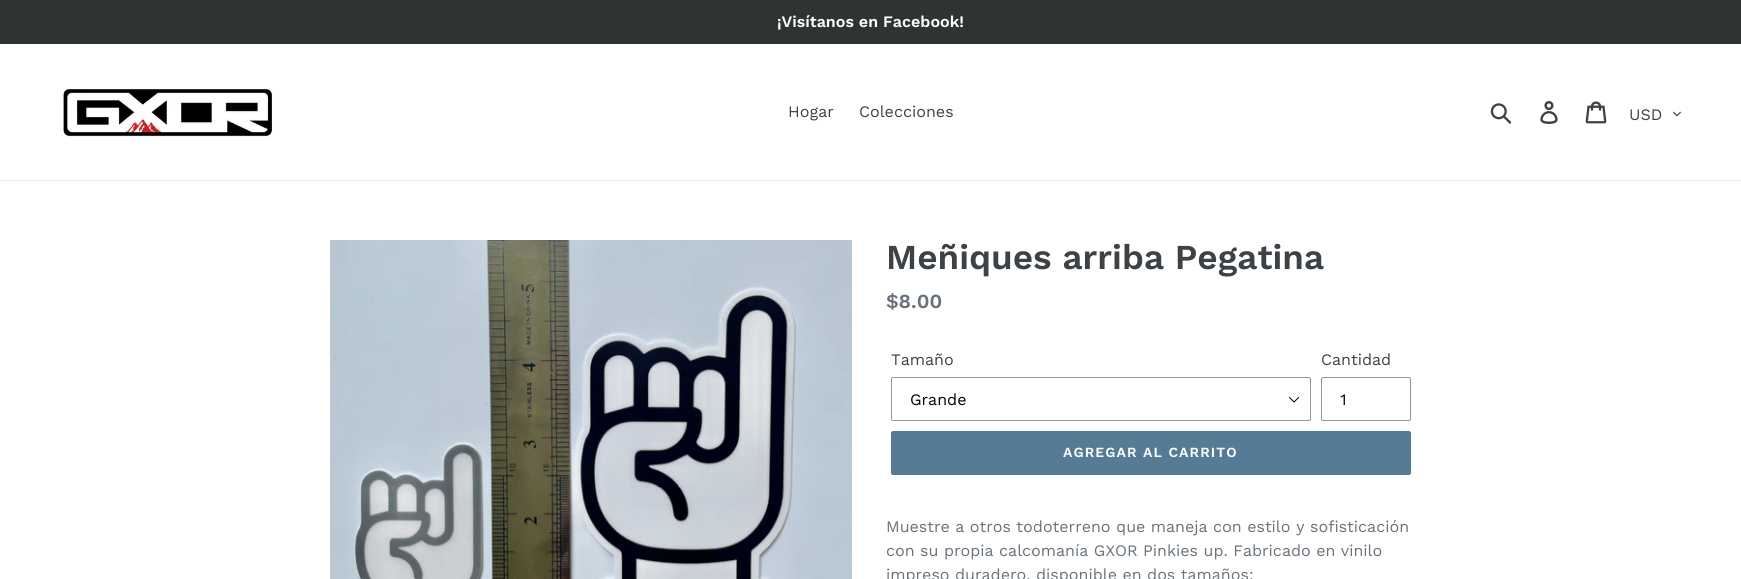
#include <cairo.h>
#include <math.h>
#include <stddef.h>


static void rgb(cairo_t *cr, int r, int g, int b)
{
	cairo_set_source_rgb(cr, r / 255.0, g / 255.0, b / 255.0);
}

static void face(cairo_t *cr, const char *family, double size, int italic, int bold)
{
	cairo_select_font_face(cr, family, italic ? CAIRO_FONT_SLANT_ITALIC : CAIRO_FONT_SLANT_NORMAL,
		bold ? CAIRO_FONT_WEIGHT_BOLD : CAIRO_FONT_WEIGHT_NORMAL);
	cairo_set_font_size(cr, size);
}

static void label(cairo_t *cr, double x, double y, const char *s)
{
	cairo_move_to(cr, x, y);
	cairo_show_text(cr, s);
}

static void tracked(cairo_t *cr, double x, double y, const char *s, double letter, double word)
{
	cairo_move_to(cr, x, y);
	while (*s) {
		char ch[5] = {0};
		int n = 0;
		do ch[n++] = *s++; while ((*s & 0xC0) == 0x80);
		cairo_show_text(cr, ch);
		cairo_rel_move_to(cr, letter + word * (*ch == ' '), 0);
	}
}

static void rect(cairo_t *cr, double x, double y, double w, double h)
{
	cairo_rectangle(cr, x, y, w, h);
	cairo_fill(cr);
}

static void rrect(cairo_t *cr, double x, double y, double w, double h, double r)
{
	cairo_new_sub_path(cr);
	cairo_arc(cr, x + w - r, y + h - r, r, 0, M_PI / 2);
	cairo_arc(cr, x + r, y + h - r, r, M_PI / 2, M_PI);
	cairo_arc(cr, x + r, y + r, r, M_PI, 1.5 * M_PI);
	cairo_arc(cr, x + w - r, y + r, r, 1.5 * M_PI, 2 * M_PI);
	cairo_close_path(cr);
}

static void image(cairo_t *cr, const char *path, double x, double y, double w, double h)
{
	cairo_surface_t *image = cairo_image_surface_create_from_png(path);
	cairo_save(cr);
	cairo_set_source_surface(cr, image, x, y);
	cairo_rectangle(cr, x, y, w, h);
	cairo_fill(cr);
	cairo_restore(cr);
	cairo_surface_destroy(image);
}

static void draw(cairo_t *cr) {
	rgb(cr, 255, 255, 255);
	cairo_paint(cr);
	rgb(cr, 46, 51, 51);
	rect(cr, 0, 0, 1741, 44);
	face(cr, "Work Sans SemiBold", 16, 0, 0);
	rgb(cr, 255, 255, 255);
	label(cr, 777, 27, "¡Visítanos en Facebook!");
	rgb(cr, 232, 233, 235);
	rect(cr, 0, 180, 1741, 1);
	image(cr, "image0.png", 62, 89, 211, 48);
	face(cr, "Work Sans", 16, 0, 0);
	rgb(cr, 61, 66, 70);
	label(cr, 788, 117, "Hogar");
	label(cr, 859, 117, "Colecciones");
	image(cr, "image1.png", 1490, 103, 22, 21);
	image(cr, "image2.png", 1540, 101, 18, 23);
	image(cr, "image3.png", 1585, 101, 22, 23);
	label(cr, 1629, 120, "USD");
	image(cr, "image4.png", 1673, 111, 8, 6);
	image(cr, "image5.png", 330, 240, 522, 339);
	face(cr, "Work Sans SemiBold", 35, 0, 0);
	label(cr, 886, 269, "Meñiques arriba Pegatina");
	face(cr, "Work Sans SemiBold", 20, 0, 0);
	rgb(cr, 105, 114, 123);
	label(cr, 886, 308, "$8.00");
	face(cr, "Work Sans", 16, 0, 0);
	rgb(cr, 61, 66, 70);
	label(cr, 891, 365, "Tamaño");
	image(cr, "image6.png", 1288, 396, 12, 7);
	rrect(cr, 891.5, 377.5, 419, 43, 1.5);
	rgb(cr, 148, 148, 148);
	cairo_set_line_width(cr, 1);
	cairo_stroke(cr);
	rgb(cr, 0, 0, 0);
	label(cr, 910, 405, "Grande");
	rgb(cr, 61, 66, 70);
	label(cr, 1321, 365, "Cantidad");
	rrect(cr, 1321.5, 377.5, 89, 43, 1.5);
	rgb(cr, 148, 148, 148);
	cairo_stroke(cr);
	rgb(cr, 0, 0, 0);
	label(cr, 1340, 405, "1");
	rgb(cr, 85, 123, 151);
	rrect(cr, 891, 431, 520, 44, 2);
	cairo_fill(cr);
	face(cr, "Work Sans SemiBold", 14, 0, 0);
	rgb(cr, 255, 255, 255);
	tracked(cr, 1063, 457, "AGREGAR AL CARRITO", 1.1, 0);
	face(cr, "Work Sans", 16, 0, 0);
	rgb(cr, 105, 114, 123);
	label(cr, 886, 532, "Muestre a otros todoterreno que maneja con estilo y sofisticación");
	label(cr, 886, 556, "con su propia calcomanía GXOR Pinkies up. Fabricado en vinilo");
	label(cr, 886, 580, "impreso duradero, disponible en dos tamaños:");
}

int main(void) {
	cairo_surface_t *surface = cairo_image_surface_create(CAIRO_FORMAT_RGB24, 1741, 579);
	cairo_t *cr = cairo_create(surface);
	cairo_font_options_t *options = cairo_font_options_create();
	cairo_font_options_set_hint_metrics(options, CAIRO_HINT_METRICS_OFF);
	cairo_font_options_set_hint_style(options, CAIRO_HINT_STYLE_NONE);
	cairo_set_font_options(cr, options);
	cairo_set_miter_limit(cr, 4);
	draw(cr);
	cairo_surface_write_to_png(surface, "render.png");
	cairo_font_options_destroy(options);
	cairo_destroy(cr);
	cairo_surface_destroy(surface);
	return 0;
}
